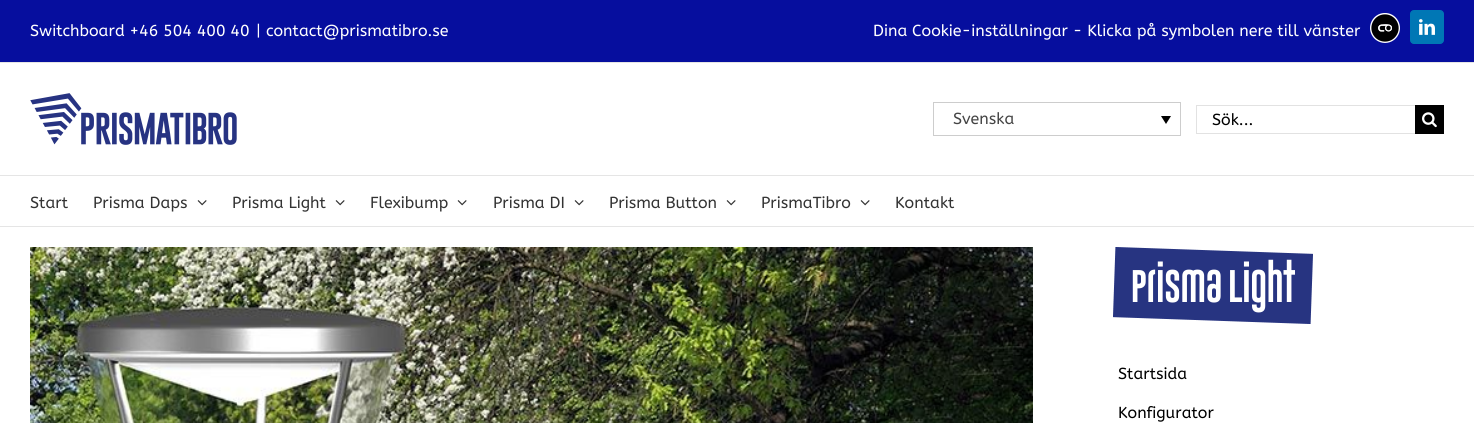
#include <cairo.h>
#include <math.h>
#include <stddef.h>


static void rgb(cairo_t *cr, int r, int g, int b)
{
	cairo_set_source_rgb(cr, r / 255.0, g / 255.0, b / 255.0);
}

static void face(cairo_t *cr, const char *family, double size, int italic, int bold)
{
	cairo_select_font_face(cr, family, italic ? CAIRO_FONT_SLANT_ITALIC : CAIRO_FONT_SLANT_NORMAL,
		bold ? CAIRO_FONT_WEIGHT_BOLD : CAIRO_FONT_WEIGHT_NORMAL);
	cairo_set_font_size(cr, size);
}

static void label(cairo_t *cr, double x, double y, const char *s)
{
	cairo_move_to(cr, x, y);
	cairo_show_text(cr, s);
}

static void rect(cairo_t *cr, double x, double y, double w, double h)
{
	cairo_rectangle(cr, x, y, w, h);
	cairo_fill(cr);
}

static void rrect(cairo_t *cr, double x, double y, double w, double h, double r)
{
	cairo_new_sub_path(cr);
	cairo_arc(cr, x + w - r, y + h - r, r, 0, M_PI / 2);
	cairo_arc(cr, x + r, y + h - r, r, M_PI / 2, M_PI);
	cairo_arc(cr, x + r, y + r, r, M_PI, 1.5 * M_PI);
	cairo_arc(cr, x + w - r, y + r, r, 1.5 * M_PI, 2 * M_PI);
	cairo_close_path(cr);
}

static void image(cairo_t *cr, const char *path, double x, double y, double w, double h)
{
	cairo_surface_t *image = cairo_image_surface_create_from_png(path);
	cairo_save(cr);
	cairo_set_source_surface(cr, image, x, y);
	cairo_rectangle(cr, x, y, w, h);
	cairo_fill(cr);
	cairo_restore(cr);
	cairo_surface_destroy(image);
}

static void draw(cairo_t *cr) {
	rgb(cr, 255, 255, 255);
	cairo_paint(cr);
	rgb(cr, 6, 14, 158);
	rect(cr, 0, 0, 1474, 62);
	rgb(cr, 229, 229, 229);
	rect(cr, 0, 62, 1474, 1);
	face(cr, "ABeeZee", 16, 0, 0);
	rgb(cr, 255, 255, 255);
	label(cr, 30, 36, "Switchboard +46 504 400 40");
	label(cr, 256, 36, "|");
	label(cr, 266, 36, "contact@prismatibro.se");
	label(cr, 873, 36, "Dina Cookie-inställningar - Klicka på symbolen nere till vänster");
	image(cr, "image0.png", 1370, 13, 30, 30);
	rgb(cr, 0, 119, 181);
	rrect(cr, 1410.5, 10.5, 33, 33, 3.5);
	cairo_fill_preserve(cr);
	cairo_set_line_width(cr, 1);
	cairo_stroke(cr);
	image(cr, "image1.png", 1419, 19, 16, 16);
	rgb(cr, 229, 229, 229);
	rect(cr, 0, 175, 1474, 1);
	image(cr, "image2.png", 30, 93, 207, 52);
	cairo_rectangle(cr, 933.5, 102.5, 247, 33);
	rgb(cr, 205, 205, 205);
	cairo_stroke(cr);
	rgb(cr, 68, 68, 68);
	label(cr, 953, 124, "Svenska");
	rgb(cr, 0, 0, 0);
	cairo_new_path(cr);
	cairo_move_to(cr, 1161, 116);
	cairo_line_to(cr, 1171, 116);
	cairo_line_to(cr, 1166, 124);
	cairo_close_path(cr);
	cairo_fill(cr);
	rgb(cr, 226, 226, 226);
	rect(cr, 1196, 105, 219, 1);
	rect(cr, 1196, 133, 219, 1);
	rect(cr, 1196, 105, 1, 29);
	rgb(cr, 0, 0, 0);
	label(cr, 1212, 125, "Sök...");
	rect(cr, 1415, 105, 29, 29);
	image(cr, "image3.png", 1422, 112, 15, 16);
	rgb(cr, 229, 229, 229);
	rect(cr, 0, 226, 1474, 1);
	rgb(cr, 51, 51, 51);
	label(cr, 30, 208, "Start");
	label(cr, 93, 208, "Prisma Daps");
	image(cr, "image4.png", 197, 200, 10, 6);
	label(cr, 232, 208, "Prisma Light");
	image(cr, "image4.png", 335, 200, 10, 6);
	label(cr, 370, 208, "Flexibump");
	image(cr, "image4.png", 457, 200, 10, 6);
	label(cr, 493, 208, "Prisma DI");
	image(cr, "image4.png", 574, 200, 10, 6);
	label(cr, 609, 208, "Prisma Button");
	image(cr, "image4.png", 726, 200, 10, 6);
	label(cr, 761, 208, "PrismaTibro");
	image(cr, "image4.png", 860, 200, 10, 6);
	label(cr, 895, 208, "Kontakt");
	image(cr, "image5.png", 30, 247, 1003, 176);
	image(cr, "image6.png", 1113, 247, 200, 77);
	rgb(cr, 0, 0, 0);
	label(cr, 1118, 379, "Startsida");
	label(cr, 1118, 418, "Konfigurator");
}

int main(void) {
	cairo_surface_t *surface = cairo_image_surface_create(CAIRO_FORMAT_RGB24, 1474, 423);
	cairo_t *cr = cairo_create(surface);
	cairo_font_options_t *options = cairo_font_options_create();
	cairo_font_options_set_hint_metrics(options, CAIRO_HINT_METRICS_OFF);
	cairo_font_options_set_hint_style(options, CAIRO_HINT_STYLE_NONE);
	cairo_set_font_options(cr, options);
	cairo_set_miter_limit(cr, 4);
	draw(cr);
	cairo_surface_write_to_png(surface, "render.png");
	cairo_font_options_destroy(options);
	cairo_destroy(cr);
	cairo_surface_destroy(surface);
	return 0;
}
